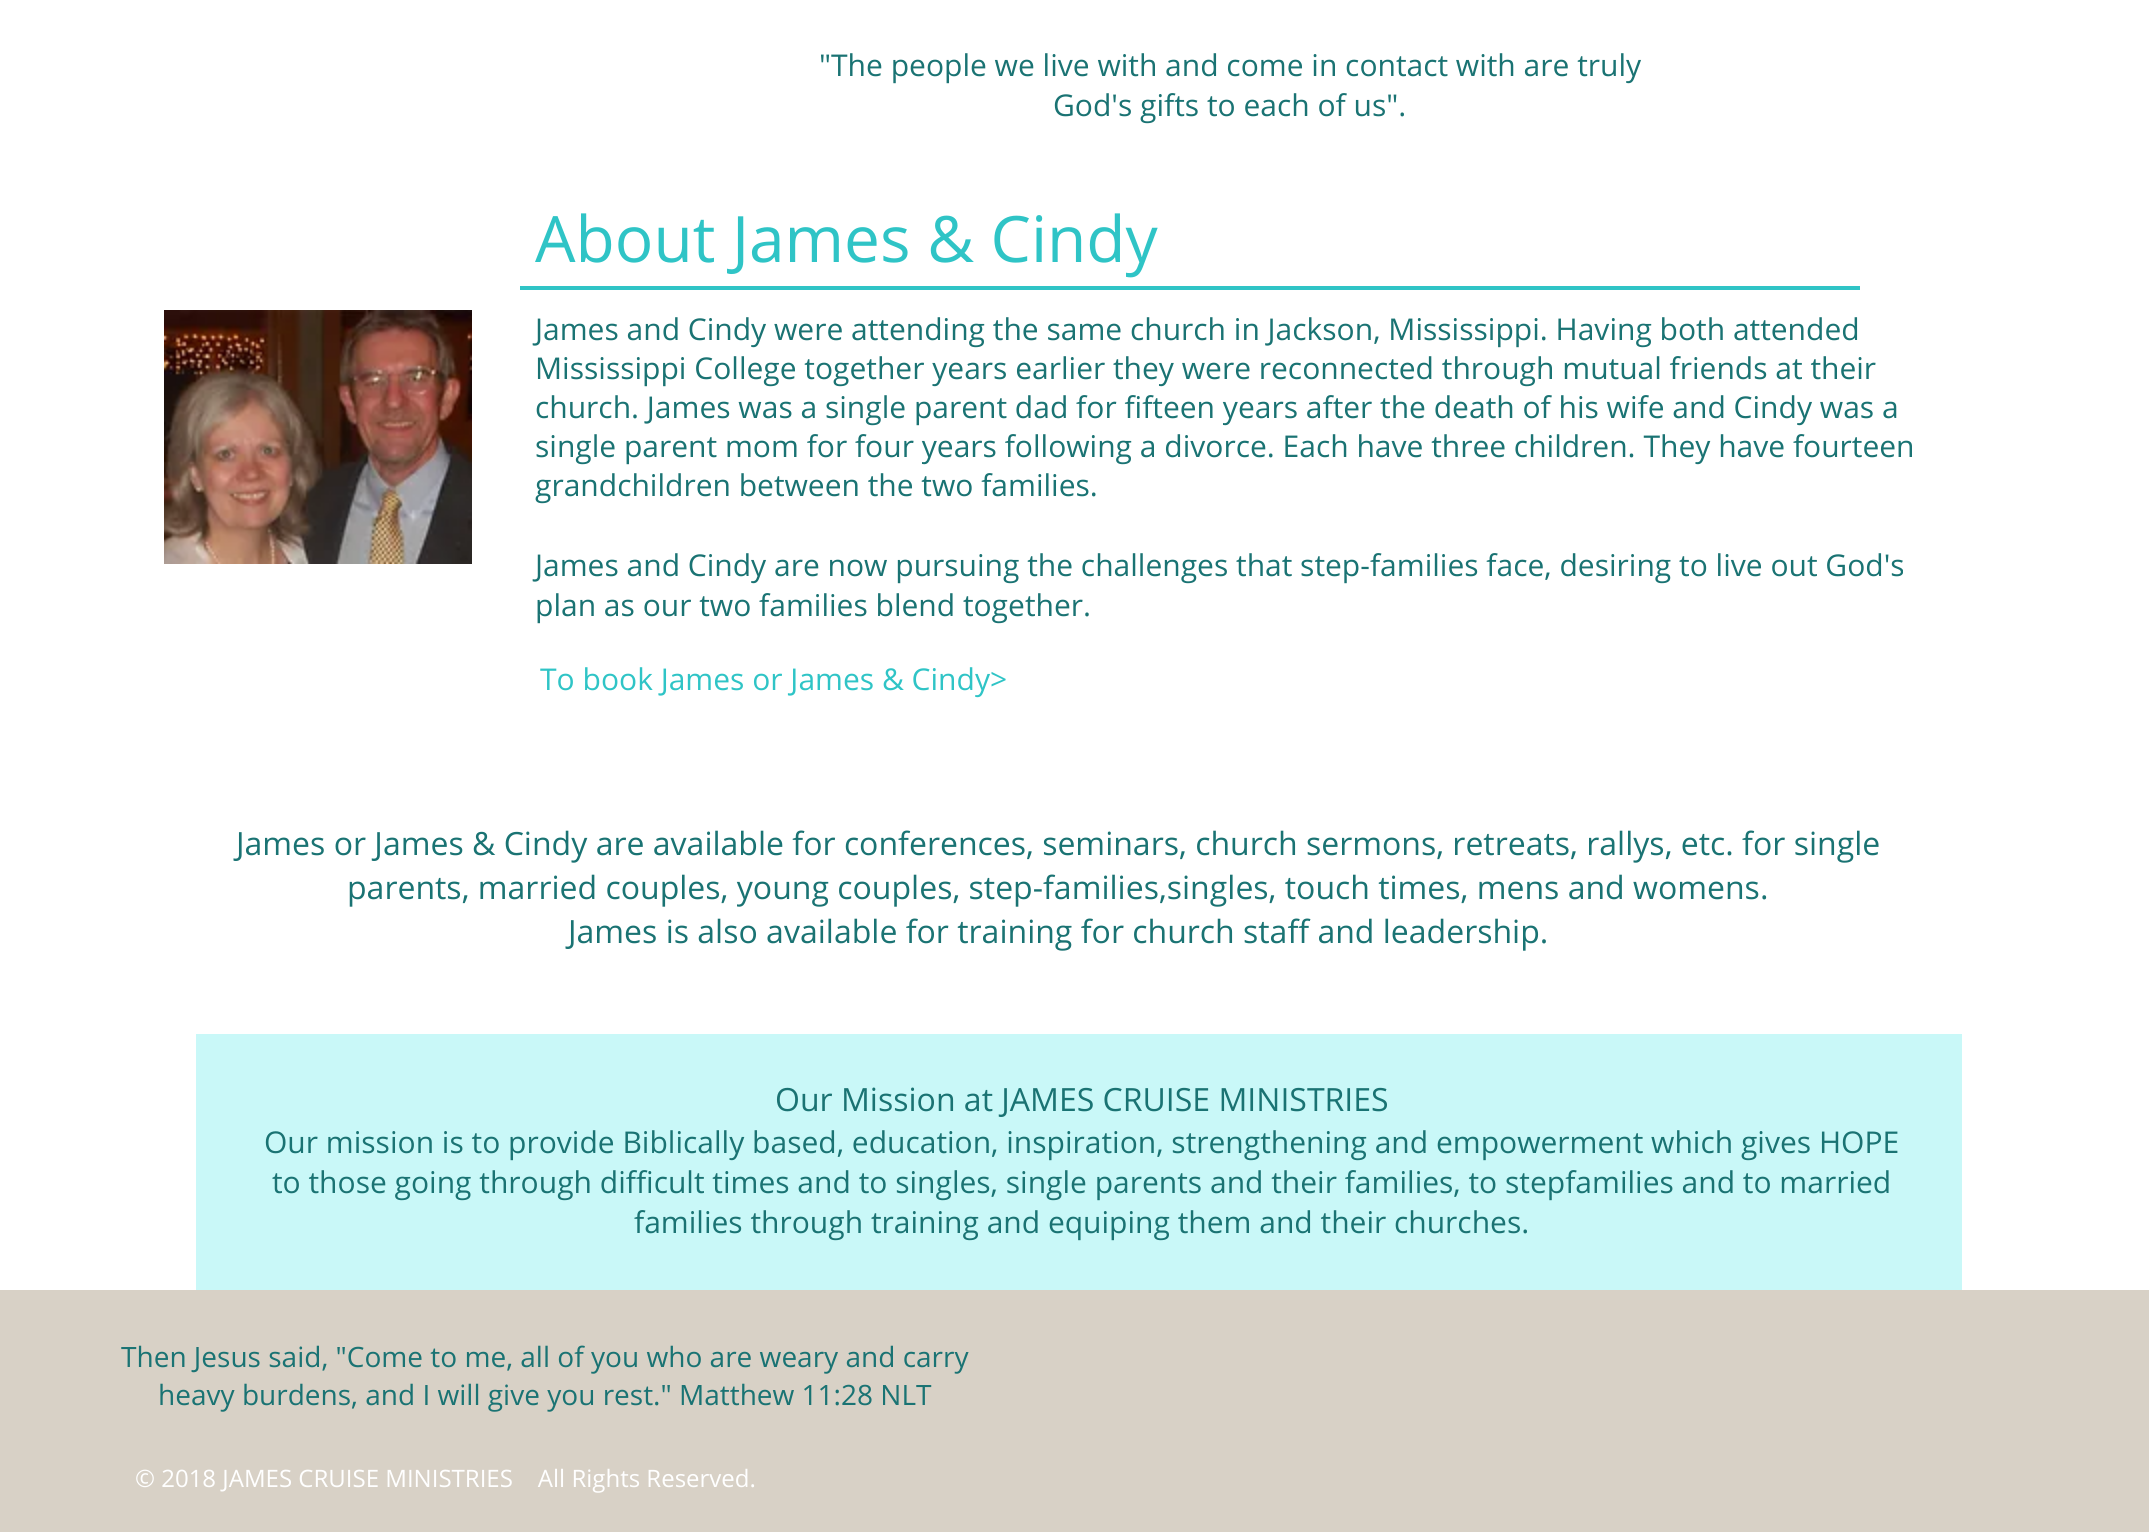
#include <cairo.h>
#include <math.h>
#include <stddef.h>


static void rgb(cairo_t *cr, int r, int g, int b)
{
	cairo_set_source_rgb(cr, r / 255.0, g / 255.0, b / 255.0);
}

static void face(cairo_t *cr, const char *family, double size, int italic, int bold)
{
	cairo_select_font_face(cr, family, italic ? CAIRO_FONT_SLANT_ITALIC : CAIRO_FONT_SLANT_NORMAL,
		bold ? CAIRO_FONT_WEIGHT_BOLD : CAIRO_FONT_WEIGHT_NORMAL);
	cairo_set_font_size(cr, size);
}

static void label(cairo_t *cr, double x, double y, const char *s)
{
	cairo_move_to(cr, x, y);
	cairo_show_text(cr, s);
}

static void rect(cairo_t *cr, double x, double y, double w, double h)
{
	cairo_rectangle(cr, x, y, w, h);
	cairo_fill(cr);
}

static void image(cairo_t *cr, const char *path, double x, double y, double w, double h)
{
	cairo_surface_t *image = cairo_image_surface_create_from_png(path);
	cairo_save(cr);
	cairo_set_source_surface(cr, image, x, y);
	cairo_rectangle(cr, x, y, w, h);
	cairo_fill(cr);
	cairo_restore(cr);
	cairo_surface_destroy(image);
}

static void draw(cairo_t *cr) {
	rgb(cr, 255, 255, 255);
	cairo_paint(cr);
	face(cr, "Open Sans", 30, 0, 0);
	rgb(cr, 26, 115, 115);
	label(cr, 819, 76, "\"The people we live with and come in contact with are truly");
	label(cr, 1053, 116, "God's gifts to each of us\".");
	face(cr, "Open Sans", 64, 0, 0);
	rgb(cr, 47, 196, 198);
	label(cr, 535, 262, "About James & Cindy");
	rect(cr, 520, 286, 1340, 4);
	image(cr, "image0.png", 164, 310, 308, 254);
	face(cr, "Open Sans", 30, 0, 0);
	rgb(cr, 26, 115, 115);
	label(cr, 535, 340, "James and Cindy were attending the same church in Jackson, Mississippi. Having both attended");
	label(cr, 535, 379, "Mississippi College together years earlier they were reconnected through mutual friends at their");
	label(cr, 535, 418, "church. James was a single parent dad for fifteen years after the death of his wife and Cindy was a");
	label(cr, 535, 457, "single parent mom for four years following a divorce. Each have three children. They have fourteen");
	label(cr, 535, 496, "grandchildren between the two families.");
	label(cr, 535, 576, "James and Cindy are now pursuing the challenges that step-families face, desiring to live out God's");
	label(cr, 535, 616, "plan as our two families blend together.");
	rgb(cr, 47, 196, 198);
	label(cr, 540, 690, "To book James or James & Cindy>");
	face(cr, "Open Sans", 32, 0, 0);
	rgb(cr, 26, 115, 115);
	label(cr, 236, 855, "James or James & Cindy are available for conferences, seminars, church sermons, retreats, rallys, etc. for single");
	label(cr, 347, 899, "parents, married couples, young couples, step-families,singles, touch times, mens and womens.");
	label(cr, 568, 943, "James is also available for training for church staff and leadership.");
	rgb(cr, 201, 248, 248);
	rect(cr, 196, 1034, 1766, 256);
	rgb(cr, 26, 115, 115);
	label(cr, 775, 1111, "Our Mission at JAMES CRUISE MINISTRIES");
	face(cr, "Open Sans", 30, 0, 0);
	label(cr, 264, 1153, "Our mission is to provide Biblically based, education, inspiration, strengthening and empowerment which gives HOPE");
	label(cr, 272, 1193, "to those going through difficult times and to singles, single parents and their families, to stepfamilies and to married");
	label(cr, 634, 1233, "families through training and equiping them and their churches.");
	rgb(cr, 216, 209, 198);
	rect(cr, 0, 1290, 2149, 242);
	face(cr, "Open Sans", 28, 0, 0);
	rgb(cr, 26, 115, 115);
	label(cr, 121, 1367, "Then Jesus said, \"Come to me, all of you who are weary and carry");
	label(cr, 158, 1405, "heavy burdens, and I will give you rest.\" Matthew 11:28 NLT");
	face(cr, "Open Sans", 24, 0, 0);
	rgb(cr, 255, 255, 255);
	label(cr, 135, 1487, "© 2018 JAMES CRUISE MINISTRIES    All Rights Reserved.");
}

int main(void) {
	cairo_surface_t *surface = cairo_image_surface_create(CAIRO_FORMAT_RGB24, 2149, 1532);
	cairo_t *cr = cairo_create(surface);
	cairo_font_options_t *options = cairo_font_options_create();
	cairo_font_options_set_hint_metrics(options, CAIRO_HINT_METRICS_OFF);
	cairo_font_options_set_hint_style(options, CAIRO_HINT_STYLE_NONE);
	cairo_set_font_options(cr, options);
	cairo_set_miter_limit(cr, 4);
	draw(cr);
	cairo_surface_write_to_png(surface, "render.png");
	cairo_font_options_destroy(options);
	cairo_destroy(cr);
	cairo_surface_destroy(surface);
	return 0;
}
